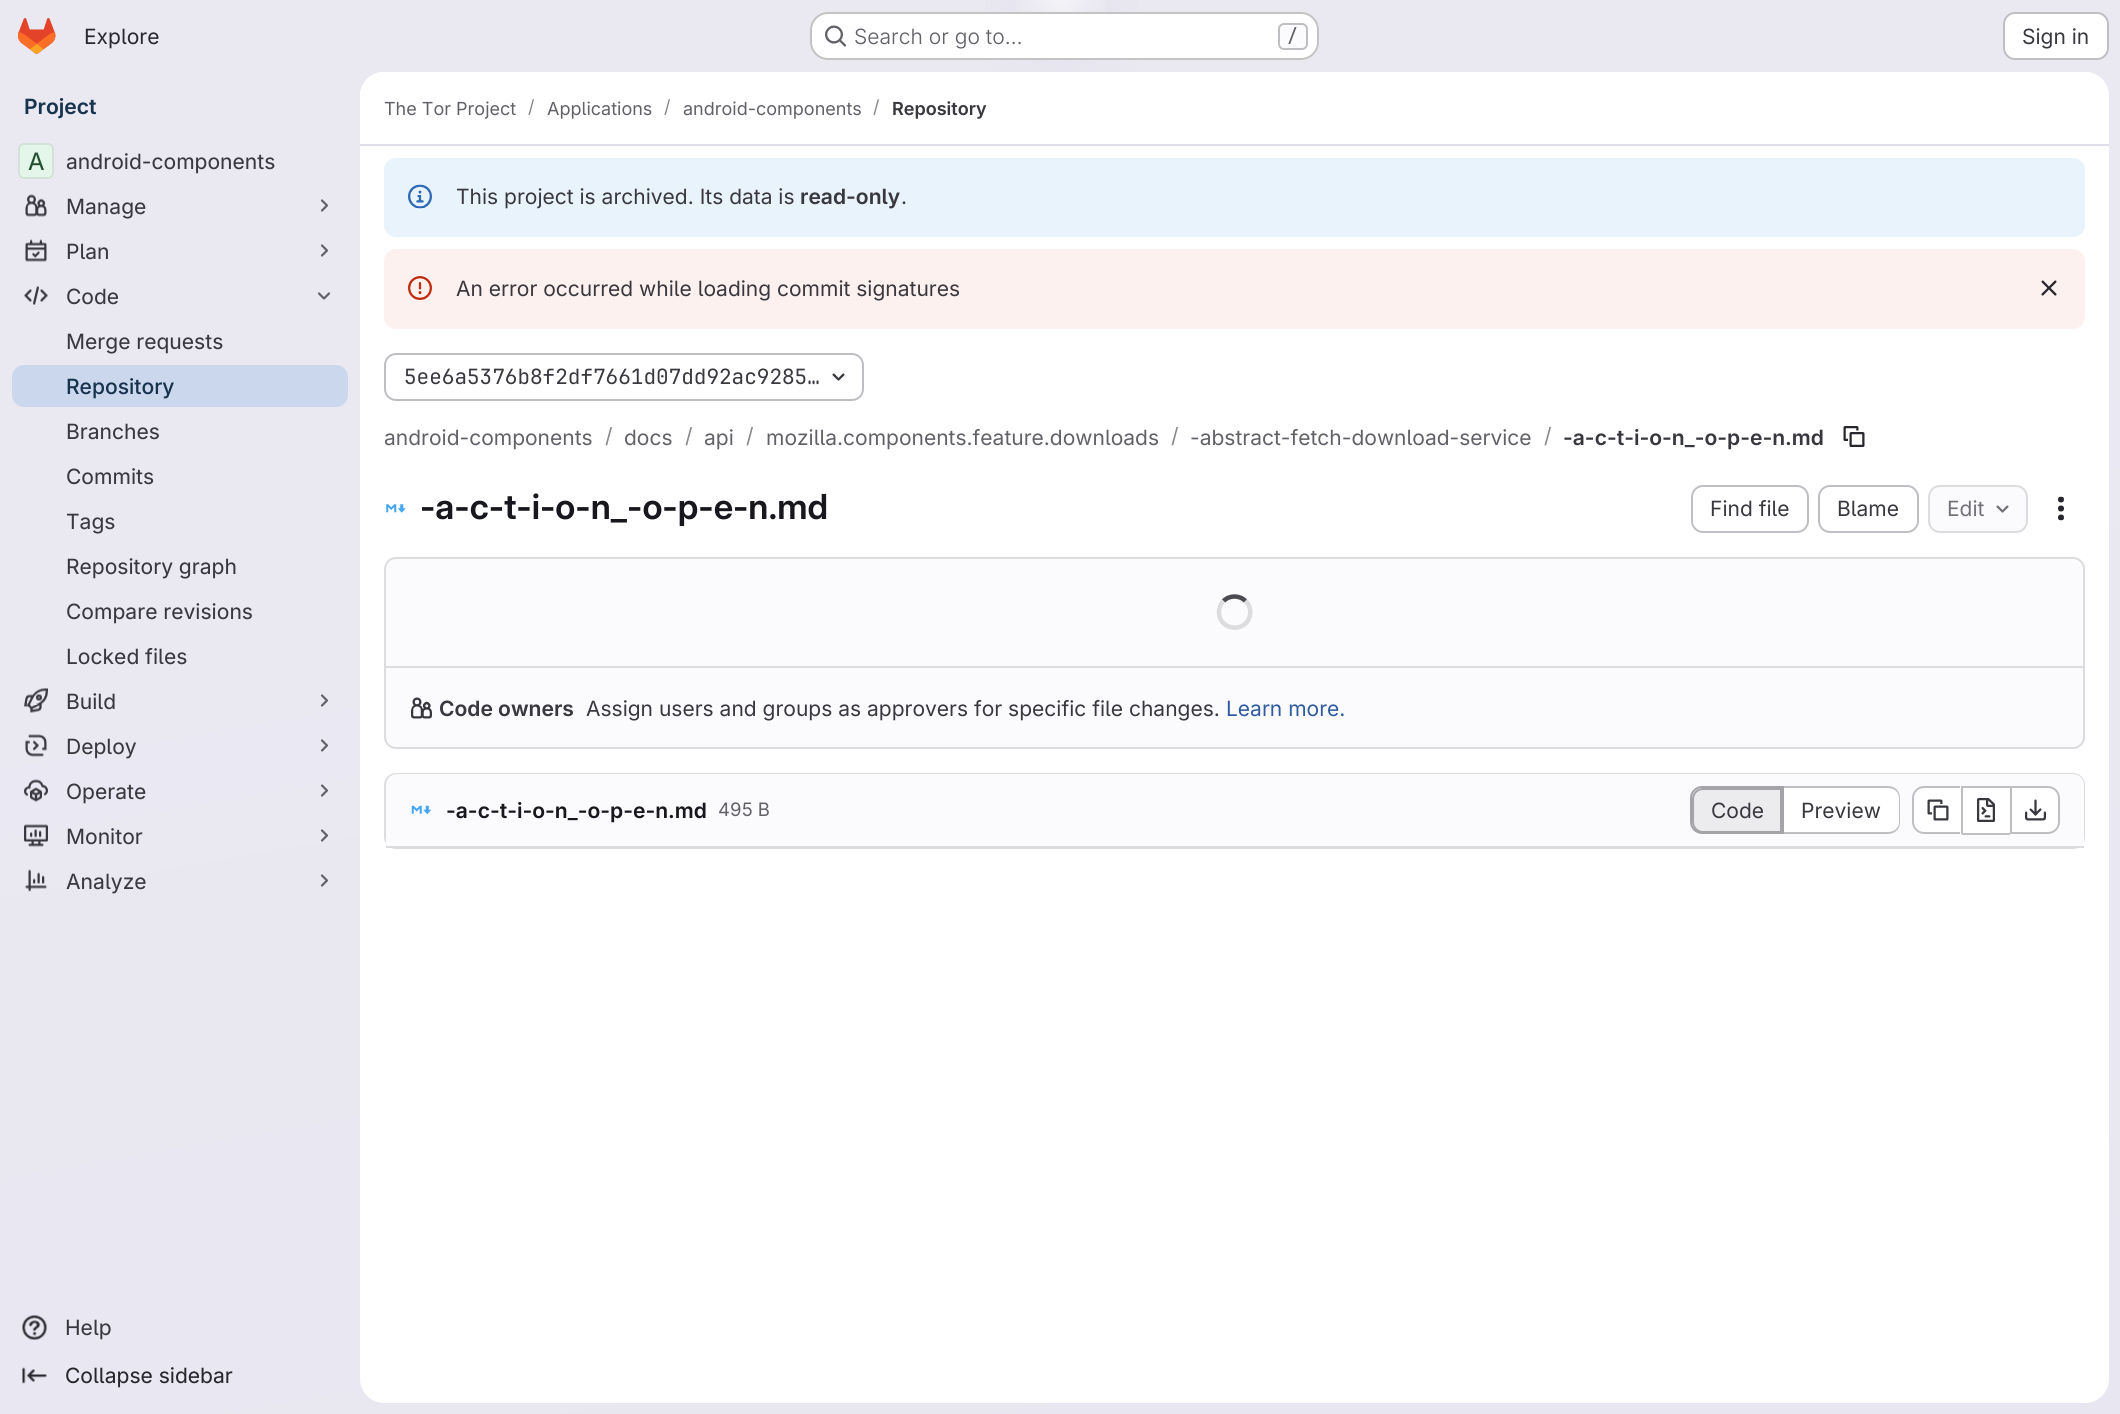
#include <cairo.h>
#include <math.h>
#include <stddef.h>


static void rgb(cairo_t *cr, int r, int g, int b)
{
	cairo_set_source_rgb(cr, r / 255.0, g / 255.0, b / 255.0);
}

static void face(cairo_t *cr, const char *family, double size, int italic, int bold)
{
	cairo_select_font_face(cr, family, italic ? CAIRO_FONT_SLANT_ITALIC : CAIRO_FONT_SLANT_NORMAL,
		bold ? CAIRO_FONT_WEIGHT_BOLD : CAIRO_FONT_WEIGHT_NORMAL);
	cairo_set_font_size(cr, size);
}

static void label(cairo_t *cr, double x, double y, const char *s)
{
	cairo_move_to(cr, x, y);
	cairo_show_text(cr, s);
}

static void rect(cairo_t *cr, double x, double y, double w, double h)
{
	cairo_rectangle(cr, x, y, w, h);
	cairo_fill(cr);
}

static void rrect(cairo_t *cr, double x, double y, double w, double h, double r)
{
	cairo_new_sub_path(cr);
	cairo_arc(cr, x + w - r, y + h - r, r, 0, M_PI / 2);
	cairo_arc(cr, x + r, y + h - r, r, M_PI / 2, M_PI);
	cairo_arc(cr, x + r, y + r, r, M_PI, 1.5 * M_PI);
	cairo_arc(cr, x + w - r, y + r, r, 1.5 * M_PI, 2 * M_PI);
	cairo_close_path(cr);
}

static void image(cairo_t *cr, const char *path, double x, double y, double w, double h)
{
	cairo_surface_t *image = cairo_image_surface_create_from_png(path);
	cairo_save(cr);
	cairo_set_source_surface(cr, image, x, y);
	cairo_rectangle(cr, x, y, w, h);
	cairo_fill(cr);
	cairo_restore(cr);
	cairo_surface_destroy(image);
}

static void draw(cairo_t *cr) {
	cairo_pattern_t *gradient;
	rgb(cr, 255, 255, 255);
	cairo_paint(cr);
	gradient = cairo_pattern_create_linear(1213, 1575, 908, -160);
	cairo_pattern_add_color_stop_rgba(gradient, 0, 0.91, 0.902, 0.941, 1);
	cairo_pattern_add_color_stop_rgba(gradient, 0.7, 0.918, 0.914, 0.949, 1);
	cairo_set_source(cr, gradient);
	cairo_pattern_destroy(gradient);
	rect(cr, 0, 0, 2120, 1414);
	gradient = cairo_pattern_create_radial(0, 0, 0, 0, 0, 1);
	cairo_pattern_set_matrix(gradient, &(cairo_matrix_t){1.0 / 1061, 0, 0, 1.0 / 1415, -1.0 * 1061 / 1061, -1.0 * 0 / 1415});
	cairo_pattern_add_color_stop_rgba(gradient, 0, 0.894, 0.886, 0.929, 1);
	cairo_pattern_add_color_stop_rgba(gradient, 0.1, 0.894, 0.886, 0.929, 0);
	cairo_set_source(cr, gradient);
	cairo_pattern_destroy(gradient);
	rect(cr, 985, 0, 152, 72);
	gradient = cairo_pattern_create_radial(0, 0, 0, 0, 0, 1);
	cairo_pattern_set_matrix(gradient, &(cairo_matrix_t){1.0 / 1061, 0, 0, 1.0 / 1415, -1.0 * 1061 / 1061, -1.0 * 0 / 1415});
	cairo_pattern_add_color_stop_rgba(gradient, 0, 0.894, 0.886, 0.925, 1);
	cairo_pattern_add_color_stop_rgba(gradient, 0.07, 0.894, 0.886, 0.925, 0);
	cairo_set_source(cr, gradient);
	cairo_pattern_destroy(gradient);
	rect(cr, 1030, 6, 62, 35);
	gradient = cairo_pattern_create_radial(1061, 0, 0, 1061, 0, 1768);
	cairo_pattern_add_color_stop_rgba(gradient, 0, 1, 1, 1, 0.6);
	cairo_pattern_add_color_stop_rgba(gradient, 0.03, 1, 1, 1, 0);
	cairo_set_source(cr, gradient);
	cairo_pattern_destroy(gradient);
	rect(cr, 1016, 0, 90, 12);
	image(cr, "image0.png", 18, 18, 38, 36);
	face(cr, "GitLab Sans", 21, 0, 0);
	rgb(cr, 40, 39, 45);
	label(cr, 84, 44, "Explore");
	rgb(cr, 255, 255, 255);
	rrect(cr, 810, 12, 509, 48, 18);
	cairo_fill(cr);
	rrect(cr, 811, 13, 507, 46, 17);
	cairo_set_source_rgba(cr, 0.02, 0.02, 0.024, 0.24);
	cairo_stroke(cr);
	image(cr, "image1.png", 825, 25, 21, 22);
	face(cr, "GitLab Sans Light", 21, 0, 0);
	rgb(cr, 98, 97, 104);
	label(cr, 854, 44, "Search or go to…");
	rgb(cr, 251, 250, 253);
	rrect(cr, 1279, 24, 28, 25, 5);
	cairo_fill_preserve(cr);
	rgb(cr, 191, 191, 195);
	cairo_stroke(cr);
	face(cr, "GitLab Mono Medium", 18, 0, 0);
	rgb(cr, 98, 97, 104);
	label(cr, 1287, 42, "/");
	rgb(cr, 255, 255, 255);
	rrect(cr, 2004, 13, 104, 46, 11);
	cairo_fill_preserve(cr);
	rgb(cr, 191, 191, 195);
	cairo_stroke(cr);
	face(cr, "GitLab Sans", 21, 0, 0);
	rgb(cr, 58, 56, 63);
	label(cr, 2022, 44, "Sign in");
	face(cr, "GitLab Sans SemiBold", 21, 0, 0);
	rgb(cr, 24, 51, 78);
	label(cr, 24, 114, "Project");
	rgb(cr, 255, 255, 255);
	rrect(cr, 18, 143, 36, 36, 6);
	cairo_fill(cr);
	cairo_set_source_rgba(cr, 0.569, 0.831, 0.659, 0.24);
	rrect(cr, 18, 143, 36, 36, 6);
	cairo_fill(cr);
	rrect(cr, 19, 144, 34, 34, 5);
	rgb(cr, 211, 225, 216);
	cairo_stroke(cr);
	face(cr, "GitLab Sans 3", 24, 0, 0);
	rgb(cr, 34, 81, 49);
	label(cr, 28, 170, "A");
	face(cr, "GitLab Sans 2", 21, 0, 0);
	rgb(cr, 58, 56, 63);
	label(cr, 66, 169, "android-components");
	image(cr, "image2.png", 25, 194, 22, 23);
	label(cr, 66, 214, "Manage");
	cairo_new_path(cr);
	cairo_move_to(cr, 322, 200.5);
	cairo_line_to(cr, 327, 205.5);
	cairo_line_to(cr, 322, 210.5);
	rgb(cr, 98, 97, 104);
	cairo_set_line_width(cr, 2.2);
	cairo_set_line_cap(cr, CAIRO_LINE_CAP_ROUND);
	cairo_set_line_join(cr, CAIRO_LINE_JOIN_ROUND);
	cairo_stroke(cr);
	image(cr, "image3.png", 25, 239, 22, 23);
	rgb(cr, 58, 56, 63);
	label(cr, 66, 259, "Plan");
	cairo_new_path(cr);
	cairo_move_to(cr, 322, 245.5);
	cairo_line_to(cr, 327, 250.5);
	cairo_line_to(cr, 322, 255.5);
	rgb(cr, 98, 97, 104);
	cairo_stroke(cr);
	image(cr, "image4.png", 24, 286, 24, 19);
	rgb(cr, 58, 56, 63);
	label(cr, 66, 304, "Code");
	cairo_new_path(cr);
	cairo_move_to(cr, 329, 293.5);
	cairo_line_to(cr, 324, 298.5);
	cairo_line_to(cr, 319, 293.5);
	rgb(cr, 98, 97, 104);
	cairo_stroke(cr);
	rgb(cr, 58, 56, 63);
	label(cr, 66, 349, "Merge requests");
	rgb(cr, 202, 215, 236);
	rrect(cr, 12, 365, 336, 42, 12);
	cairo_fill(cr);
	face(cr, "GitLab Sans Medium", 21, 0, 0);
	rgb(cr, 24, 51, 78);
	label(cr, 66, 394, "Repository");
	face(cr, "GitLab Sans 2", 21, 0, 0);
	rgb(cr, 58, 56, 63);
	label(cr, 66, 439, "Branches");
	label(cr, 66, 484, "Commits");
	label(cr, 66, 529, "Tags");
	label(cr, 66, 574, "Repository graph");
	label(cr, 66, 619, "Compare revisions");
	label(cr, 66, 664, "Locked files");
	image(cr, "image5.png", 24, 688, 24, 25);
	label(cr, 66, 709, "Build");
	cairo_new_path(cr);
	cairo_move_to(cr, 322, 695.5);
	cairo_line_to(cr, 327, 700.5);
	cairo_line_to(cr, 322, 705.5);
	rgb(cr, 98, 97, 104);
	cairo_stroke(cr);
	image(cr, "image6.png", 25, 734, 22, 23);
	rgb(cr, 58, 56, 63);
	label(cr, 66, 754, "Deploy");
	cairo_new_path(cr);
	cairo_move_to(cr, 322, 740.5);
	cairo_line_to(cr, 327, 745.5);
	cairo_line_to(cr, 322, 750.5);
	rgb(cr, 98, 97, 104);
	cairo_stroke(cr);
	image(cr, "image7.png", 24, 779, 24, 23);
	rgb(cr, 58, 56, 63);
	label(cr, 66, 799, "Operate");
	cairo_new_path(cr);
	cairo_move_to(cr, 322, 785.5);
	cairo_line_to(cr, 327, 790.5);
	cairo_line_to(cr, 322, 795.5);
	rgb(cr, 98, 97, 104);
	cairo_stroke(cr);
	image(cr, "image8.png", 24, 824, 24, 23);
	rgb(cr, 58, 56, 63);
	label(cr, 66, 844, "Monitor");
	cairo_new_path(cr);
	cairo_move_to(cr, 322, 830.5);
	cairo_line_to(cr, 327, 835.5);
	cairo_line_to(cr, 322, 840.5);
	rgb(cr, 98, 97, 104);
	cairo_stroke(cr);
	image(cr, "image9.png", 25, 869, 22, 23);
	rgb(cr, 58, 56, 63);
	label(cr, 66, 889, "Analyze");
	cairo_new_path(cr);
	cairo_move_to(cr, 322, 875.5);
	cairo_line_to(cr, 327, 880.5);
	cairo_line_to(cr, 322, 885.5);
	rgb(cr, 98, 97, 104);
	cairo_stroke(cr);
	image(cr, "image10.png", 22, 1315, 25, 25);
	rgb(cr, 58, 56, 63);
	label(cr, 65, 1335, "Help");
	image(cr, "image11.png", 22, 1367, 25, 17);
	rgb(cr, 40, 39, 45);
	label(cr, 65, 1383, "Collapse sidebar");
	rgb(cr, 255, 255, 255);
	rrect(cr, 360, 72, 1749, 1331, 24);
	cairo_fill(cr);
	cairo_new_path(cr);
	cairo_move_to(cr, 384, 72);
	cairo_line_to(cr, 2085, 72);
	cairo_curve_to(cr, 2098.5, 72, 2109, 82.5, 2109, 96);
	cairo_line_to(cr, 2109, 146);
	cairo_line_to(cr, 360, 146);
	cairo_line_to(cr, 360, 96);
	cairo_curve_to(cr, 360, 82.5, 370.5, 72, 384, 72);
	cairo_close_path(cr);
	cairo_fill(cr);
	rgb(cr, 225, 223, 236);
	rect(cr, 360, 144, 1749, 2);
	face(cr, "GitLab Sans", 18, 0, 0);
	rgb(cr, 98, 97, 104);
	label(cr, 384, 115, "The Tor Project");
	rgb(cr, 137, 136, 141);
	label(cr, 528, 113, "/");
	rgb(cr, 98, 97, 104);
	label(cr, 547, 115, "Applications");
	rgb(cr, 137, 136, 141);
	label(cr, 664, 113, "/");
	rgb(cr, 98, 97, 104);
	label(cr, 683, 115, "android-components");
	rgb(cr, 137, 136, 141);
	label(cr, 873, 113, "/");
	face(cr, "GitLab Sans SemiBold", 18, 0, 0);
	rgb(cr, 58, 56, 63);
	label(cr, 892, 115, "Repository");
	rgb(cr, 233, 243, 252);
	rrect(cr, 384, 158, 1701, 79, 12);
	cairo_fill(cr);
	image(cr, "image12.png", 408, 184, 24, 25);
	face(cr, "GitLab Sans", 21, 0, 0);
	rgb(cr, 58, 56, 63);
	label(cr, 456, 204, "This project is archived. Its data is");
	face(cr, "GitLab Sans SemiBold", 21, 0, 0);
	label(cr, 800, 204, "read-only");
	face(cr, "GitLab Sans", 21, 0, 0);
	label(cr, 901, 204, ".");
	rgb(cr, 252, 241, 239);
	rrect(cr, 384, 249, 1701, 80, 12);
	cairo_fill(cr);
	image(cr, "image13.png", 408, 276, 24, 24);
	rgb(cr, 58, 56, 63);
	label(cr, 456, 296, "An error occurred while loading commit signatures");
	image(cr, "image14.png", 2041, 280, 16, 16);
	rrect(cr, 385, 354, 478, 46, 11);
	rgb(cr, 191, 191, 195);
	cairo_set_line_width(cr, 2);
	cairo_set_line_cap(cr, CAIRO_LINE_CAP_BUTT);
	cairo_set_line_join(cr, CAIRO_LINE_JOIN_MITER);
	cairo_stroke(cr);
	face(cr, "GitLab Mono", 21, 0, 0);
	rgb(cr, 58, 56, 63);
	label(cr, 404, 384, "5ee6a5376b8f2df7661d07dd92ac9285…");
	image(cr, "image15.png", 832, 373, 13, 8);
	face(cr, "GitLab Sans", 21, 0, 0);
	rgb(cr, 98, 97, 104);
	label(cr, 384, 445, "android-components");
	rgb(cr, 137, 136, 141);
	label(cr, 605, 443, "/");
	rgb(cr, 98, 97, 104);
	label(cr, 624, 445, "docs");
	rgb(cr, 137, 136, 141);
	label(cr, 685, 443, "/");
	rgb(cr, 98, 97, 104);
	label(cr, 704, 445, "api");
	rgb(cr, 137, 136, 141);
	label(cr, 746, 443, "/");
	rgb(cr, 98, 97, 104);
	label(cr, 766, 445, "mozilla.components.feature.downloads");
	rgb(cr, 137, 136, 141);
	label(cr, 1171, 443, "/");
	rgb(cr, 98, 97, 104);
	label(cr, 1190, 445, "-abstract-fetch-download-service");
	rgb(cr, 137, 136, 141);
	label(cr, 1544, 443, "/");
	face(cr, "GitLab Sans SemiBold", 21, 0, 0);
	rgb(cr, 58, 56, 63);
	label(cr, 1563, 445, "-a-c-t-i-o-n_-o-p-e-n.md");
	image(cr, "image16.png", 1843, 426, 22, 21);
	image(cr, "image17.png", 386, 504, 20, 9);
	face(cr, "GitLab Sans 2 SemiBold", 34.5, 0, 0);
	rgb(cr, 24, 23, 29);
	label(cr, 420, 519, "-a-c-t-i-o-n_-o-p-e-n.md");
	rrect(cr, 1692, 486, 116, 46, 11);
	rgb(cr, 191, 191, 195);
	cairo_stroke(cr);
	face(cr, "GitLab Sans", 21, 0, 0);
	rgb(cr, 58, 56, 63);
	label(cr, 1710, 516, "Find file");
	rrect(cr, 1819, 486, 99, 46, 11);
	rgb(cr, 191, 191, 195);
	cairo_stroke(cr);
	rgb(cr, 58, 56, 63);
	label(cr, 1837, 516, "Blame");
	rgb(cr, 251, 250, 253);
	rrect(cr, 1929, 486, 98, 46, 11);
	cairo_fill_preserve(cr);
	rgb(cr, 220, 220, 222);
	cairo_stroke(cr);
	rgb(cr, 115, 114, 120);
	label(cr, 1947, 516, "Edit");
	image(cr, "image18.png", 1996, 505, 13, 8);
	image(cr, "image19.png", 2058, 496, 6, 25);
	rgb(cr, 251, 250, 253);
	rrect(cr, 385, 558, 1699, 190, 11);
	cairo_fill_preserve(cr);
	rgb(cr, 220, 220, 222);
	cairo_stroke(cr);
	cairo_new_path(cr);
	cairo_move_to(cr, 1223.5, 601);
	cairo_curve_to(cr, 1229.5, 595, 1239.5, 595, 1245.5, 601);
	rgb(cr, 76, 75, 81);
	cairo_set_line_width(cr, 4.5);
	cairo_stroke(cr);
	cairo_new_path(cr);
	cairo_move_to(cr, 1245.5, 601);
	cairo_curve_to(cr, 1249.5, 604.5, 1251, 610, 1250, 615);
	cairo_curve_to(cr, 1246.5, 633.5, 1219, 631, 1219, 612);
	cairo_curve_to(cr, 1219, 608, 1220.5, 604, 1223.5, 601);
	rgb(cr, 220, 220, 222);
	cairo_stroke(cr);
	rect(cr, 386, 666, 1698, 2);
	image(cr, "image20.png", 411, 697, 21, 22);
	face(cr, "GitLab Sans SemiBold", 21, 0, 0);
	rgb(cr, 58, 56, 63);
	label(cr, 439, 716, "Code owners");
	face(cr, "GitLab Sans", 21, 0, 0);
	label(cr, 586, 716, "Assign users and groups as approvers for specific file changes.");
	rgb(cr, 47, 92, 160);
	label(cr, 1226, 716, "Learn more.");
	rrect(cr, 385, 774, 1699, 74, 11);
	rgb(cr, 220, 220, 222);
	cairo_set_line_width(cr, 2);
	cairo_stroke(cr);
	rgb(cr, 251, 250, 253);
	cairo_new_path(cr);
	cairo_move_to(cr, 397, 774);
	cairo_line_to(cr, 2073, 774);
	cairo_curve_to(cr, 2079, 774, 2084, 779, 2084, 785);
	cairo_line_to(cr, 2084, 848);
	cairo_line_to(cr, 386, 848);
	cairo_line_to(cr, 386, 785);
	cairo_curve_to(cr, 386, 779, 391, 774, 397, 774);
	cairo_close_path(cr);
	cairo_fill(cr);
	rgb(cr, 220, 220, 222);
	rect(cr, 386, 846, 1698, 2);
	image(cr, "image21.png", 411, 805, 21, 10);
	face(cr, "GitLab Sans SemiBold", 21, 0, 0);
	rgb(cr, 24, 23, 29);
	label(cr, 446, 818, "-a-c-t-i-o-n_-o-p-e-n.md");
	face(cr, "GitLab Sans", 18.5, 0, 0);
	rgb(cr, 98, 97, 104);
	label(cr, 718, 816, "495 B");
	rgb(cr, 236, 236, 239);
	cairo_new_path(cr);
	cairo_move_to(cr, 1703, 789);
	cairo_line_to(cr, 1781, 789);
	cairo_line_to(cr, 1781, 832);
	cairo_line_to(cr, 1703, 832);
	cairo_curve_to(cr, 1697.5, 832, 1693, 827.5, 1693, 822);
	cairo_line_to(cr, 1693, 799);
	cairo_curve_to(cr, 1693, 793.5, 1697.5, 789, 1703, 789);
	cairo_close_path(cr);
	cairo_fill_preserve(cr);
	rgb(cr, 164, 163, 168);
	cairo_stroke(cr);
	cairo_set_fill_rule(cr, CAIRO_FILL_RULE_EVEN_ODD);
	cairo_new_path(cr);
	cairo_move_to(cr, 1702, 786);
	cairo_line_to(cr, 1782, 786);
	cairo_line_to(cr, 1782, 834);
	cairo_line_to(cr, 1702, 834);
	cairo_curve_to(cr, 1696, 834, 1690, 829, 1690, 822);
	cairo_line_to(cr, 1690, 798);
	cairo_curve_to(cr, 1690, 791, 1696, 786, 1702, 786);
	cairo_close_path(cr);
	cairo_move_to(cr, 1702, 788);
	cairo_line_to(cr, 1782, 788);
	cairo_line_to(cr, 1782, 832);
	cairo_line_to(cr, 1702, 832);
	cairo_curve_to(cr, 1697, 832, 1692, 828, 1692, 822);
	cairo_line_to(cr, 1692, 798);
	cairo_curve_to(cr, 1692, 792, 1697, 788, 1702, 788);
	cairo_close_path(cr);
	cairo_fill(cr);
	face(cr, "GitLab Sans", 21, 0, 0);
	rgb(cr, 58, 56, 63);
	label(cr, 1711, 818, "Code");
	rgb(cr, 255, 255, 255);
	cairo_new_path(cr);
	cairo_move_to(cr, 1784, 788);
	cairo_line_to(cr, 1888, 788);
	cairo_curve_to(cr, 1894, 788, 1899, 793, 1899, 799);
	cairo_line_to(cr, 1899, 822);
	cairo_curve_to(cr, 1899, 828, 1894, 833, 1888, 833);
	cairo_line_to(cr, 1784, 833);
	cairo_close_path(cr);
	cairo_fill(cr);
	rgb(cr, 191, 191, 195);
	cairo_new_path(cr);
	cairo_move_to(cr, 1784, 786);
	cairo_line_to(cr, 1888, 786);
	cairo_curve_to(cr, 1895, 786, 1900, 791, 1900, 798);
	cairo_line_to(cr, 1900, 822);
	cairo_curve_to(cr, 1900, 829, 1895, 834, 1888, 834);
	cairo_line_to(cr, 1784, 834);
	cairo_close_path(cr);
	cairo_move_to(cr, 1784, 788);
	cairo_line_to(cr, 1888, 788);
	cairo_curve_to(cr, 1894, 788, 1899, 792, 1899, 798);
	cairo_line_to(cr, 1899, 822);
	cairo_curve_to(cr, 1899, 828, 1894, 832, 1888, 832);
	cairo_line_to(cr, 1784, 832);
	cairo_close_path(cr);
	cairo_fill(cr);
	rgb(cr, 164, 163, 168);
	rect(cr, 1782, 786, 2, 48);
	rgb(cr, 58, 56, 63);
	label(cr, 1801, 818, "Preview");
	rgb(cr, 255, 255, 255);
	cairo_new_path(cr);
	cairo_move_to(cr, 1925, 788);
	cairo_line_to(cr, 1961, 788);
	cairo_line_to(cr, 1961, 833);
	cairo_line_to(cr, 1925, 833);
	cairo_curve_to(cr, 1919, 833, 1914, 828, 1914, 822);
	cairo_line_to(cr, 1914, 799);
	cairo_curve_to(cr, 1914, 793, 1919, 788, 1925, 788);
	cairo_close_path(cr);
	cairo_fill(cr);
	rgb(cr, 191, 191, 195);
	cairo_new_path(cr);
	cairo_move_to(cr, 1924, 786);
	cairo_line_to(cr, 1960, 786);
	cairo_line_to(cr, 1960, 834);
	cairo_line_to(cr, 1924, 834);
	cairo_curve_to(cr, 1918, 834, 1912, 829, 1912, 822);
	cairo_line_to(cr, 1912, 798);
	cairo_curve_to(cr, 1912, 791, 1918, 786, 1924, 786);
	cairo_close_path(cr);
	cairo_move_to(cr, 1924, 788);
	cairo_line_to(cr, 1960, 788);
	cairo_line_to(cr, 1960, 832);
	cairo_line_to(cr, 1924, 832);
	cairo_curve_to(cr, 1919, 832, 1914, 828, 1914, 822);
	cairo_line_to(cr, 1914, 798);
	cairo_curve_to(cr, 1914, 792, 1919, 788, 1924, 788);
	cairo_close_path(cr);
	cairo_fill(cr);
	image(cr, "image22.png", 1927, 799, 22, 22);
	rgb(cr, 255, 255, 255);
	rect(cr, 1963, 788, 47, 45);
	rgb(cr, 191, 191, 195);
	rect(cr, 1962, 786, 48, 2);
	rect(cr, 1962, 833, 48, 2);
	rect(cr, 1961, 786, 2, 48);
	image(cr, "image23.png", 1977, 798, 18, 24);
	rgb(cr, 255, 255, 255);
	cairo_new_path(cr);
	cairo_move_to(cr, 2012, 788);
	cairo_line_to(cr, 2047, 788);
	cairo_curve_to(cr, 2053, 788, 2058, 793, 2058, 799);
	cairo_line_to(cr, 2058, 822);
	cairo_curve_to(cr, 2058, 828, 2053, 833, 2047, 833);
	cairo_line_to(cr, 2012, 833);
	cairo_close_path(cr);
	cairo_fill(cr);
	rgb(cr, 191, 191, 195);
	cairo_new_path(cr);
	cairo_move_to(cr, 2012, 786);
	cairo_line_to(cr, 2048, 786);
	cairo_curve_to(cr, 2054, 786, 2060, 791, 2060, 798);
	cairo_line_to(cr, 2060, 822);
	cairo_curve_to(cr, 2060, 829, 2054, 834, 2048, 834);
	cairo_line_to(cr, 2012, 834);
	cairo_close_path(cr);
	cairo_move_to(cr, 2012, 788);
	cairo_line_to(cr, 2048, 788);
	cairo_curve_to(cr, 2053, 788, 2058, 792, 2058, 798);
	cairo_line_to(cr, 2058, 822);
	cairo_curve_to(cr, 2058, 828, 2053, 832, 2048, 832);
	cairo_line_to(cr, 2012, 832);
	cairo_close_path(cr);
	cairo_fill(cr);
	rect(cr, 2010, 786, 2, 48);
	image(cr, "image24.png", 2025, 799, 21, 22);
}

int main(void) {
	cairo_surface_t *surface = cairo_image_surface_create(CAIRO_FORMAT_RGB24, 2120, 1414);
	cairo_t *cr = cairo_create(surface);
	cairo_font_options_t *options = cairo_font_options_create();
	cairo_font_options_set_hint_metrics(options, CAIRO_HINT_METRICS_OFF);
	cairo_font_options_set_hint_style(options, CAIRO_HINT_STYLE_NONE);
	cairo_set_font_options(cr, options);
	cairo_set_miter_limit(cr, 4);
	draw(cr);
	cairo_surface_write_to_png(surface, "render.png");
	cairo_font_options_destroy(options);
	cairo_destroy(cr);
	cairo_surface_destroy(surface);
	return 0;
}
